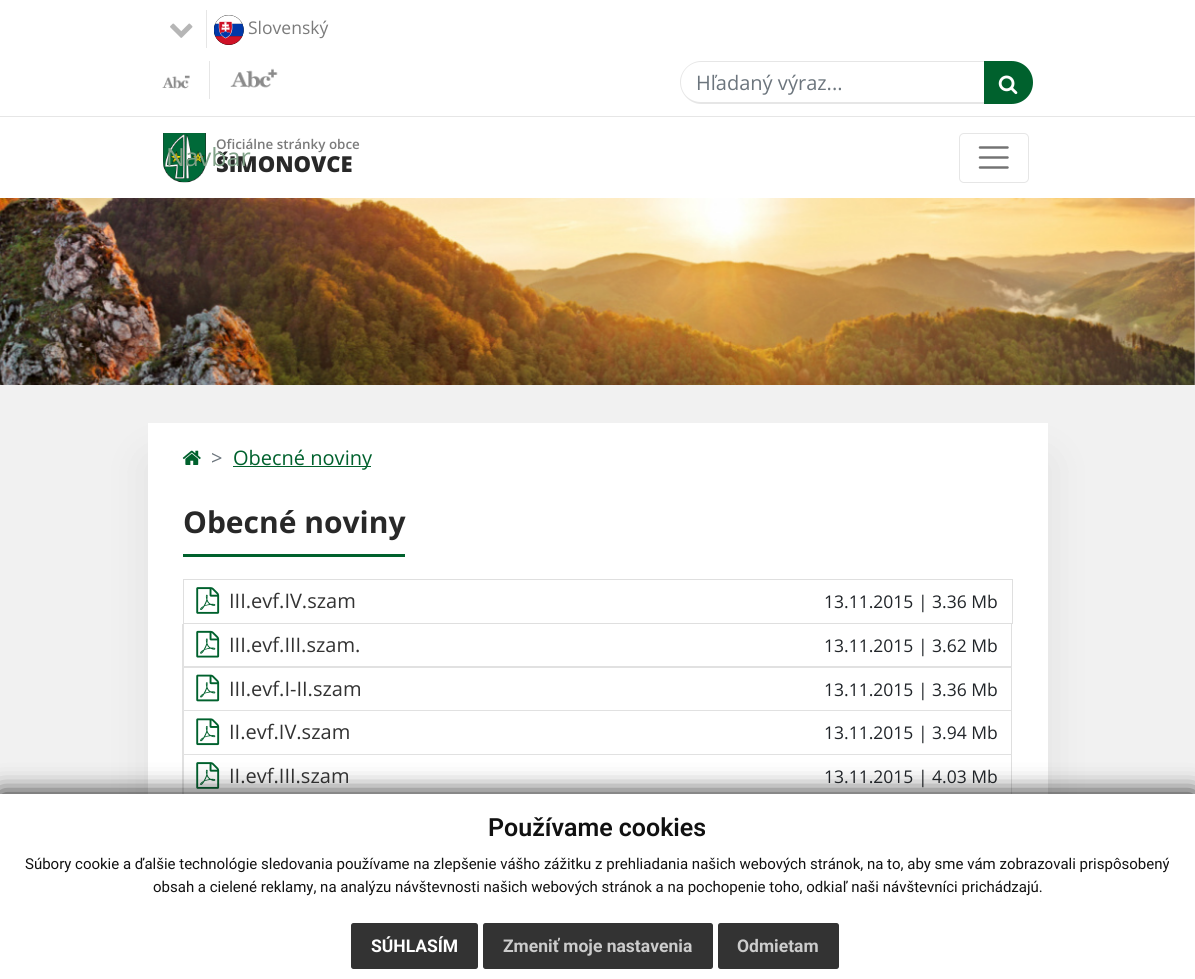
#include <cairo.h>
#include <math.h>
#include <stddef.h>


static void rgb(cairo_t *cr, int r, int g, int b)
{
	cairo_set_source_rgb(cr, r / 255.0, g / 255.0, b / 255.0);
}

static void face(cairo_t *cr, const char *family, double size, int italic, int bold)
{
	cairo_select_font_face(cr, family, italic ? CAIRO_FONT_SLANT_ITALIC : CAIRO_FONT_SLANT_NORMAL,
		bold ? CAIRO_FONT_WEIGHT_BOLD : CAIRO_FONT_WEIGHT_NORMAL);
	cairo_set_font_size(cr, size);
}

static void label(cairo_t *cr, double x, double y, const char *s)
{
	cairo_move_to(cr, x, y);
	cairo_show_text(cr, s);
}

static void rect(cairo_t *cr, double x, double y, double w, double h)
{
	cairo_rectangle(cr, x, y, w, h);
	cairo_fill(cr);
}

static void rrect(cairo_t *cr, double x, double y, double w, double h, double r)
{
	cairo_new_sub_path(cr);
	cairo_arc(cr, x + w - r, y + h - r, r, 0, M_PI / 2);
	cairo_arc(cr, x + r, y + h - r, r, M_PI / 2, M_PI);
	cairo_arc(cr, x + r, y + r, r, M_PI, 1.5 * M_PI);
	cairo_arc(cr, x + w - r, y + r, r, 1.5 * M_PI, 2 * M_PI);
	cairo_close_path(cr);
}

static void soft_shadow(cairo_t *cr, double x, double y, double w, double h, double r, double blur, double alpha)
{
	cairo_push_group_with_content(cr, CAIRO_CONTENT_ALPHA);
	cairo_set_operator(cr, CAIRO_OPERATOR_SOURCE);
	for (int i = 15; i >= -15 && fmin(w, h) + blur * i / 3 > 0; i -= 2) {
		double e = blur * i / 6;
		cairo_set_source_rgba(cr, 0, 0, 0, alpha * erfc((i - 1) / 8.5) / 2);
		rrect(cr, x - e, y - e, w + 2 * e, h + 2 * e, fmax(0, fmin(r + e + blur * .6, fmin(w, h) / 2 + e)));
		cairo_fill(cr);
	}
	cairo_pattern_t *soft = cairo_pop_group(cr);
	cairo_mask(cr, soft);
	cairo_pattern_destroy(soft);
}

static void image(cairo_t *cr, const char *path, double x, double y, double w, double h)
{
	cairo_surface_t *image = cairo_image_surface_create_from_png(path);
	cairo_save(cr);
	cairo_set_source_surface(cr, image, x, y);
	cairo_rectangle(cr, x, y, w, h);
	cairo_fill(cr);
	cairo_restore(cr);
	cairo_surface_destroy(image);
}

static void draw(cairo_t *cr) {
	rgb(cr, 241, 241, 241);
	cairo_paint(cr);
	rgb(cr, 255, 255, 255);
	rect(cr, 0, 0, 1195, 116);
	rgb(cr, 230, 230, 230);
	rect(cr, 206, 10, 1, 38);
	image(cr, "image0.png", 170, 23, 23, 15);
	image(cr, "image1.png", 214, 15, 30, 30);
	face(cr, "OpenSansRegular", 17.5, 0, 0);
	rgb(cr, 123, 123, 123);
	label(cr, 248, 34, "Slovenský");
	image(cr, "image2.png", 162, 75, 28, 14);
	rgb(cr, 230, 230, 230);
	rect(cr, 209, 61, 1, 38);
	image(cr, "image3.png", 230, 68, 48, 20);
	cairo_set_fill_rule(cr, CAIRO_FILL_RULE_EVEN_ODD);
	cairo_new_path(cr);
	cairo_move_to(cr, 701, 61);
	cairo_line_to(cr, 984, 61);
	cairo_line_to(cr, 984, 104);
	cairo_line_to(cr, 701, 104);
	cairo_curve_to(cr, 690, 104, 680, 94, 680, 82);
	cairo_curve_to(cr, 680, 71, 690, 61, 701, 61);
	cairo_close_path(cr);
	cairo_move_to(cr, 701, 62);
	cairo_line_to(cr, 984, 62);
	cairo_line_to(cr, 984, 102);
	cairo_line_to(cr, 701, 102);
	cairo_curve_to(cr, 690, 102, 681, 94, 681, 82);
	cairo_curve_to(cr, 681, 71, 690, 62, 701, 62);
	cairo_close_path(cr);
	cairo_fill(cr);
	face(cr, "OpenSansRegular", 20, 0, 0);
	rgb(cr, 108, 117, 125);
	label(cr, 696, 90, "Hľadaný výraz...");
	rgb(cr, 0, 97, 45);
	cairo_new_path(cr);
	cairo_move_to(cr, 984, 61);
	cairo_line_to(cr, 1011.5, 61);
	cairo_curve_to(cr, 1023.5, 61, 1033, 70.5, 1033, 82.5);
	cairo_curve_to(cr, 1033, 94.5, 1023.5, 104, 1011.5, 104);
	cairo_line_to(cr, 984, 104);
	cairo_close_path(cr);
	cairo_fill(cr);
	image(cr, "image4.png", 998, 75, 20, 20);
	rgb(cr, 255, 255, 255);
	rect(cr, 0, 117, 1195, 81);
	rgb(cr, 230, 230, 230);
	rect(cr, 0, 116, 1195, 1);
	image(cr, "image5.png", 163, 133, 43, 50);
	face(cr, "Open Sans ExtraBold", 22, 0, 0);
	rgb(cr, 40, 40, 40);
	label(cr, 216, 172, "ŠIMONOVCE");
	face(cr, "OpenSansRegular", 25, 0, 0);
	rgb(cr, 129, 162, 137);
	label(cr, 166, 166, "Navbar");
	rrect(cr, 959.5, 133.5, 69, 49, 4.5);
	rgb(cr, 230, 230, 230);
	cairo_set_line_width(cr, 1);
	cairo_stroke(cr);
	cairo_new_path(cr);
	cairo_move_to(cr, 980, 147.5);
	cairo_line_to(cr, 1007.5, 147.5);
	cairo_move_to(cr, 980, 157.5);
	cairo_line_to(cr, 1007.5, 157.5);
	cairo_move_to(cr, 980, 167.5);
	cairo_line_to(cr, 1007.5, 167.5);
	rgb(cr, 115, 115, 115);
	cairo_set_line_width(cr, 2.5);
	cairo_set_line_cap(cr, CAIRO_LINE_CAP_ROUND);
	cairo_stroke(cr);
	face(cr, "Open Sans SemiBold", 13.4, 0, 0);
	rgb(cr, 123, 123, 123);
	label(cr, 216, 149, "Oficiálne stránky obce");
	image(cr, "image6.png", 0, 198, 1195, 187);
	rgb(cr, 0, 0, 0);
	soft_shadow(cr, 148, 460, 900, 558, 0, 25, 0.07);
	rgb(cr, 255, 255, 255);
	rect(cr, 148, 423, 900, 371);
	image(cr, "image7.png", 182, 450, 19, 15);
	face(cr, "OpenSansRegular", 20, 0, 0);
	rgb(cr, 108, 117, 125);
	label(cr, 211, 465, ">");
	rgb(cr, 0, 97, 45);
	rect(cr, 233, 466, 138, 1);
	label(cr, 233, 465, "Obecné noviny");
	rect(cr, 183, 554, 222, 3);
	face(cr, "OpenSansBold", 30, 0, 1);
	rgb(cr, 40, 40, 40);
	label(cr, 183, 533, "Obecné noviny");
	cairo_rectangle(cr, 183.5, 579.5, 829, 44);
	rgb(cr, 223, 223, 223);
	cairo_set_line_width(cr, 1);
	cairo_set_line_cap(cr, CAIRO_LINE_CAP_BUTT);
	cairo_stroke(cr);
	image(cr, "image8.png", 196, 587, 24, 27);
	face(cr, "OpenSansRegular", 20, 0, 0);
	rgb(cr, 51, 51, 51);
	label(cr, 229, 608, "III.evf.IV.szam");
	face(cr, "OpenSansRegular", 17.5, 0, 0);
	rgb(cr, 33, 37, 41);
	label(cr, 824, 608, "13.11.2015 | 3.36 Mb");
	rgb(cr, 223, 223, 223);
	cairo_set_fill_rule(cr, CAIRO_FILL_RULE_WINDING);
	cairo_new_path(cr);
	cairo_move_to(cr, 1012, 624);
	cairo_line_to(cr, 1012, 668);
	cairo_line_to(cr, 1011, 666);
	cairo_line_to(cr, 1011, 624);
	cairo_close_path(cr);
	cairo_fill(cr);
	cairo_set_source_rgba(cr, 0, 0, 0, 0.12);
	cairo_new_path(cr);
	cairo_move_to(cr, 1012, 668);
	cairo_line_to(cr, 182, 668);
	cairo_line_to(cr, 184, 666);
	cairo_line_to(cr, 1011, 666);
	cairo_close_path(cr);
	cairo_fill(cr);
	cairo_new_path(cr);
	cairo_move_to(cr, 182, 668);
	cairo_line_to(cr, 182, 624);
	cairo_line_to(cr, 184, 624);
	cairo_line_to(cr, 184, 666);
	cairo_close_path(cr);
	cairo_fill(cr);
	image(cr, "image9.png", 196, 630, 24, 28);
	face(cr, "OpenSansRegular", 20, 0, 0);
	rgb(cr, 51, 51, 51);
	label(cr, 229, 652, "III.evf.III.szam.");
	face(cr, "OpenSansRegular", 17.5, 0, 0);
	rgb(cr, 33, 37, 41);
	label(cr, 824, 652, "13.11.2015 | 3.62 Mb");
	rgb(cr, 223, 223, 223);
	cairo_new_path(cr);
	cairo_move_to(cr, 1012, 668);
	cairo_line_to(cr, 1012, 711);
	cairo_line_to(cr, 1011, 710);
	cairo_line_to(cr, 1011, 668);
	cairo_close_path(cr);
	cairo_fill(cr);
	cairo_set_source_rgba(cr, 0, 0, 0, 0.12);
	cairo_new_path(cr);
	cairo_move_to(cr, 1012, 711);
	cairo_line_to(cr, 182, 711);
	cairo_line_to(cr, 184, 710);
	cairo_line_to(cr, 1011, 710);
	cairo_close_path(cr);
	cairo_fill(cr);
	cairo_new_path(cr);
	cairo_move_to(cr, 182, 711);
	cairo_line_to(cr, 182, 668);
	cairo_line_to(cr, 184, 668);
	cairo_line_to(cr, 184, 710);
	cairo_close_path(cr);
	cairo_fill(cr);
	image(cr, "image10.png", 196, 674, 24, 28);
	face(cr, "OpenSansRegular", 20, 0, 0);
	rgb(cr, 51, 51, 51);
	label(cr, 229, 696, "III.evf.I-II.szam");
	face(cr, "OpenSansRegular", 17.5, 0, 0);
	rgb(cr, 33, 37, 41);
	label(cr, 824, 696, "13.11.2015 | 3.36 Mb");
	rgb(cr, 223, 223, 223);
	cairo_new_path(cr);
	cairo_move_to(cr, 1012, 711);
	cairo_line_to(cr, 1012, 755);
	cairo_line_to(cr, 1011, 754);
	cairo_line_to(cr, 1011, 711);
	cairo_close_path(cr);
	cairo_fill(cr);
	cairo_set_source_rgba(cr, 0, 0, 0, 0.12);
	cairo_new_path(cr);
	cairo_move_to(cr, 1012, 755);
	cairo_line_to(cr, 182, 755);
	cairo_line_to(cr, 184, 754);
	cairo_line_to(cr, 1011, 754);
	cairo_close_path(cr);
	cairo_fill(cr);
	cairo_new_path(cr);
	cairo_move_to(cr, 182, 755);
	cairo_line_to(cr, 182, 711);
	cairo_line_to(cr, 184, 711);
	cairo_line_to(cr, 184, 754);
	cairo_close_path(cr);
	cairo_fill(cr);
	image(cr, "image11.png", 196, 718, 24, 28);
	face(cr, "OpenSansRegular", 20, 0, 0);
	rgb(cr, 51, 51, 51);
	label(cr, 229, 739, "II.evf.IV.szam");
	face(cr, "OpenSansRegular", 17.5, 0, 0);
	rgb(cr, 33, 37, 41);
	label(cr, 824, 739, "13.11.2015 | 3.94 Mb");
	rgb(cr, 223, 223, 223);
	cairo_new_path(cr);
	cairo_move_to(cr, 1012, 755);
	cairo_line_to(cr, 1012, 799);
	cairo_line_to(cr, 1011, 798);
	cairo_line_to(cr, 1011, 755);
	cairo_close_path(cr);
	cairo_fill(cr);
	cairo_set_source_rgba(cr, 0, 0, 0, 0.12);
	cairo_new_path(cr);
	cairo_move_to(cr, 182, 799);
	cairo_line_to(cr, 182, 755);
	cairo_line_to(cr, 184, 755);
	cairo_line_to(cr, 184, 798);
	cairo_close_path(cr);
	cairo_fill(cr);
	image(cr, "image8.png", 196, 762, 24, 27);
	face(cr, "OpenSansRegular", 20, 0, 0);
	rgb(cr, 51, 51, 51);
	label(cr, 229, 783, "II.evf.III.szam");
	face(cr, "OpenSansRegular", 17.5, 0, 0);
	rgb(cr, 33, 37, 41);
	label(cr, 824, 783, "13.11.2015 | 4.03 Mb");
	rgb(cr, 17, 17, 17);
	soft_shadow(cr, 0, 794, 1195, 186, 0, 12.5, 1);
	rgb(cr, 255, 255, 255);
	rect(cr, 0, 794, 1195, 185);
	face(cr, "Roboto SemiBold", 25, 0, 0);
	rgb(cr, 17, 17, 17);
	label(cr, 488, 836, "Používame cookies");
	face(cr, "Roboto", 15, 0, 0);
	label(cr, 25, 869, "Súbory cookie a ďalšie technológie sledovania používame na zlepšenie vášho zážitku z prehliadania našich webových stránok, na to, aby sme vám zobrazovali prispôsobený");
	label(cr, 153, 892, "obsah a cielené reklamy, na analýzu návštevnosti našich webových stránok a na pochopenie toho, odkiaľ naši návštevníci prichádzajú.");
	rgb(cr, 51, 51, 51);
	rrect(cr, 351, 923, 127, 46, 2.5);
	cairo_fill(cr);
	face(cr, "Roboto", 17.5, 0, 1);
	rgb(cr, 255, 255, 255);
	label(cr, 371, 952, "SÚHLASÍM");
	rgb(cr, 51, 51, 51);
	rrect(cr, 483, 923, 230, 46, 2.5);
	cairo_fill(cr);
	rgb(cr, 204, 204, 204);
	label(cr, 503, 952, "Zmeniť moje nastavenia");
	rgb(cr, 51, 51, 51);
	rrect(cr, 718, 923, 121, 46, 2.5);
	cairo_fill(cr);
	rgb(cr, 204, 204, 204);
	label(cr, 737, 952, "Odmietam");
}

int main(void) {
	cairo_surface_t *surface = cairo_image_surface_create(CAIRO_FORMAT_RGB24, 1195, 979);
	cairo_t *cr = cairo_create(surface);
	cairo_font_options_t *options = cairo_font_options_create();
	cairo_font_options_set_hint_metrics(options, CAIRO_HINT_METRICS_OFF);
	cairo_font_options_set_hint_style(options, CAIRO_HINT_STYLE_NONE);
	cairo_set_font_options(cr, options);
	cairo_set_miter_limit(cr, 4);
	draw(cr);
	cairo_surface_write_to_png(surface, "render.png");
	cairo_font_options_destroy(options);
	cairo_destroy(cr);
	cairo_surface_destroy(surface);
	return 0;
}
